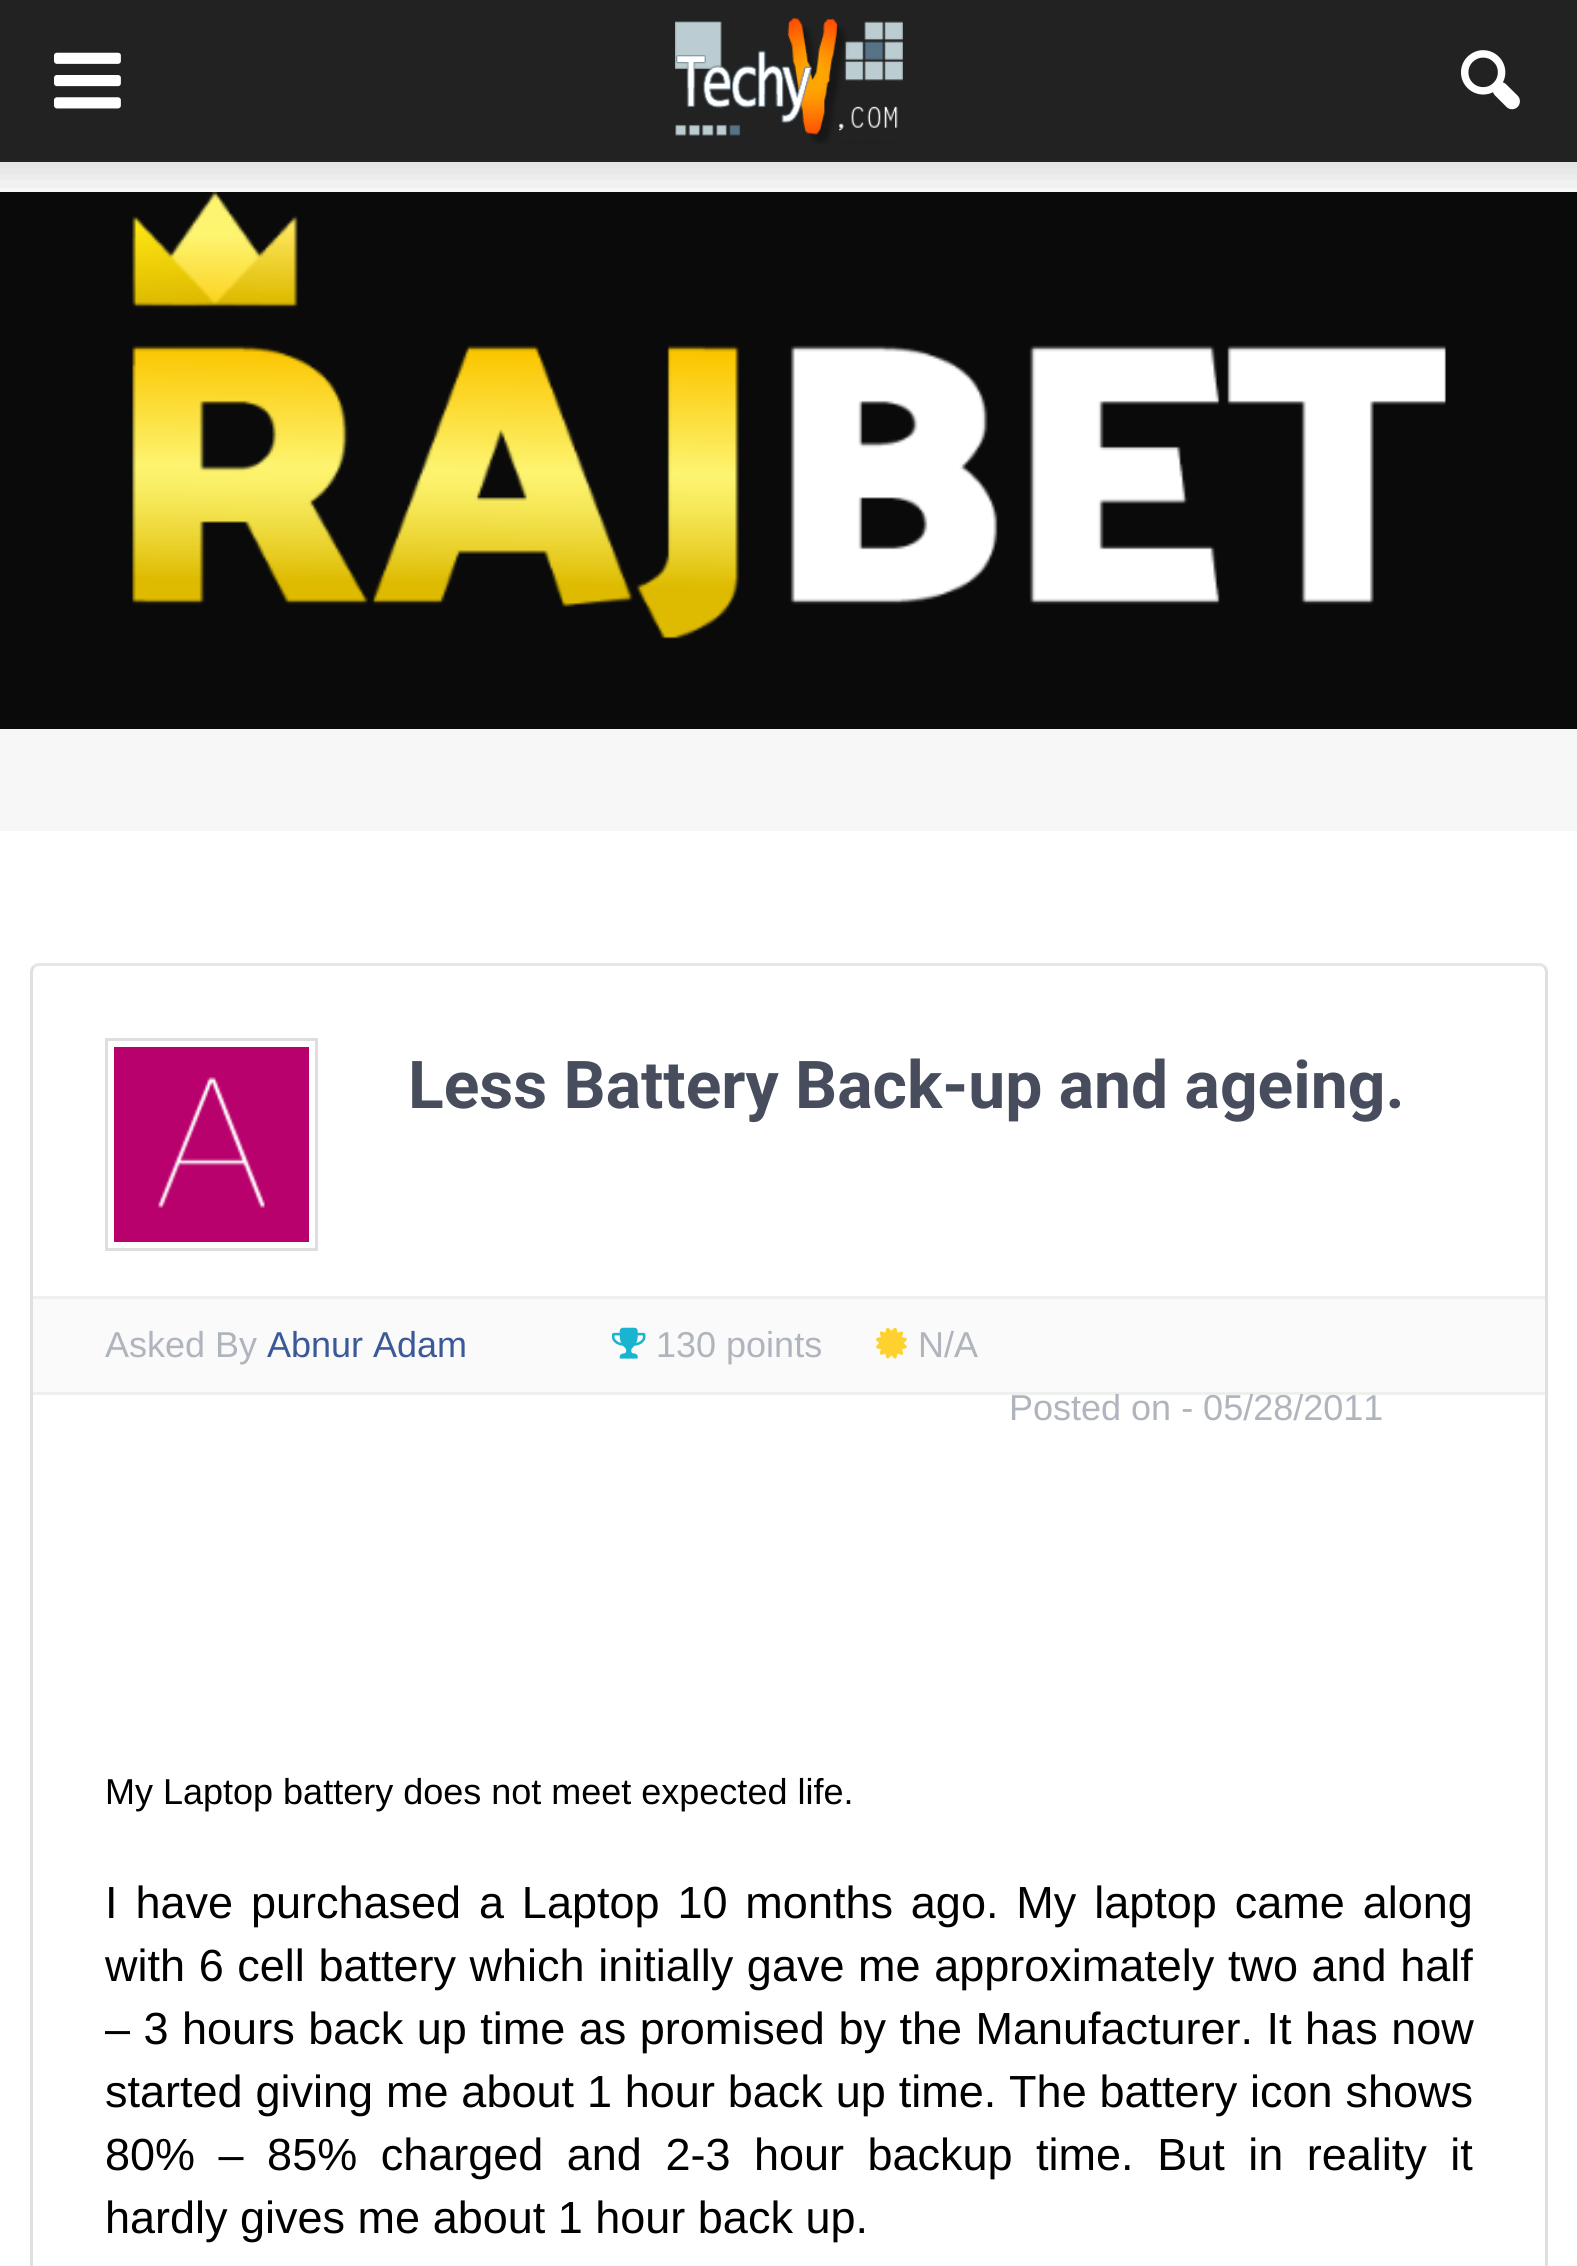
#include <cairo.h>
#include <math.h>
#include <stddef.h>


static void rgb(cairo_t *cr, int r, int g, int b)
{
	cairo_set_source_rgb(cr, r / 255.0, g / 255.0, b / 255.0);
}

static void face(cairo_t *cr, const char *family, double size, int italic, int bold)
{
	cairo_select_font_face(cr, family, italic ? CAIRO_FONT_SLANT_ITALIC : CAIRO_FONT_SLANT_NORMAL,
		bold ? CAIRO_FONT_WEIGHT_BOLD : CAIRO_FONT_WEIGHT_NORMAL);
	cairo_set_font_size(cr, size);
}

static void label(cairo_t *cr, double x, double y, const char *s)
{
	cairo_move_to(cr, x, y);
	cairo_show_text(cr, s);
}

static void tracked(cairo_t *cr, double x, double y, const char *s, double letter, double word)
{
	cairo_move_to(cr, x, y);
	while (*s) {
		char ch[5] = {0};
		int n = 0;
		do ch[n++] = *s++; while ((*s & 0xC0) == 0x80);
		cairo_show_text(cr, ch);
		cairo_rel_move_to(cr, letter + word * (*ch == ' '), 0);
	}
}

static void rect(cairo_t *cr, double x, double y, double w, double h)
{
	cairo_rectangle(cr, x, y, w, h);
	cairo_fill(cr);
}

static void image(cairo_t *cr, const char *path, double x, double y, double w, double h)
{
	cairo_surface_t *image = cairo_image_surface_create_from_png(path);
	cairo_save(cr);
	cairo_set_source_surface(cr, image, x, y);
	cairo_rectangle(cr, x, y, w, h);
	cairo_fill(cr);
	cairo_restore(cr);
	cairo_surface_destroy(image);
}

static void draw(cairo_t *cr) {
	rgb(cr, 255, 255, 255);
	cairo_paint(cr);
	rgb(cr, 34, 34, 34);
	rect(cr, 0, 0, 1577, 162);
	image(cr, "image0.png", 54, 52, 67, 57);
	image(cr, "image1.png", 675, 18, 228, 126);
	image(cr, "image2.png", 1461, 50, 59, 60);
	rgb(cr, 247, 247, 247);
	rect(cr, 0, 162, 1577, 669);
	image(cr, "image3.png", 0, 162, 1577, 26);
	image(cr, "image4.png", 0, 192, 1577, 537);
	cairo_new_path(cr);
	cairo_move_to(cr, 33.5, 966.5);
	cairo_curve_to(cr, 35, 965.5, 37, 964.5, 39, 964.5);
	cairo_line_to(cr, 1539, 964.5);
	cairo_curve_to(cr, 1541, 964.5, 1543, 965.5, 1544.5, 966.5);
	rgb(cr, 229, 230, 233);
	cairo_set_line_width(cr, 3);
	cairo_stroke(cr);
	cairo_new_path(cr);
	cairo_move_to(cr, 1544.5, 966.5);
	cairo_curve_to(cr, 1545.5, 968, 1546.5, 970, 1546.5, 972);
	cairo_line_to(cr, 1546.5, 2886);
	cairo_curve_to(cr, 1546.5, 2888, 1545.5, 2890, 1544.5, 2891.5);
	rgb(cr, 223, 224, 228);
	cairo_stroke(cr);
	cairo_new_path(cr);
	cairo_move_to(cr, 33.5, 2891.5);
	cairo_curve_to(cr, 32.5, 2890, 31.5, 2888, 31.5, 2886);
	cairo_line_to(cr, 31.5, 972);
	cairo_curve_to(cr, 31.5, 970, 32.5, 968, 33.5, 966.5);
	cairo_stroke(cr);
	cairo_rectangle(cr, 106.5, 1039.5, 210, 210);
	rgb(cr, 222, 222, 222);
	cairo_stroke(cr);
	image(cr, "image5.png", 114, 1047, 195, 195);
	face(cr, "Roboto", 66, 0, 1);
	rgb(cr, 71, 77, 93);
	label(cr, 408, 1108, "Less Battery Back-up and ageing.");
	rgb(cr, 250, 250, 250);
	rect(cr, 33, 1299, 1512, 93);
	rgb(cr, 238, 240, 238);
	rect(cr, 33, 1296, 1512, 3);
	rect(cr, 33, 1392, 1512, 3);
	face(cr, "Liberation Sans", 36, 0, 0);
	rgb(cr, 175, 180, 189);
	label(cr, 105, 1357, "Asked By");
	rgb(cr, 59, 89, 152);
	label(cr, 267, 1357, "Abnur Adam");
	image(cr, "image6.png", 612, 1327, 34, 32);
	rgb(cr, 175, 180, 189);
	label(cr, 656, 1357, "130 points");
	image(cr, "image7.png", 876, 1327, 31, 32);
	label(cr, 918, 1357, "N/A");
	label(cr, 1009, 1420, "Posted on - 05/28/2011");
	rgb(cr, 0, 0, 0);
	label(cr, 105, 1804, "My Laptop battery does not meet expected life.");
	face(cr, "Liberation Sans", 45, 0, 0);
	tracked(cr, 105, 1918, "I have purchased a Laptop 10 months ago. My laptop came along", 0, 5.4);
	tracked(cr, 105, 1981, "with 6 cell battery which initially gave me approximately two and half", 0, 1.1);
	tracked(cr, 105, 2044, "– 3 hours back up time as promised by the Manufacturer. It has now", 0, 1);
	tracked(cr, 105, 2107, "started giving me about 1 hour back up time. The battery icon shows", 0, 0.4);
	tracked(cr, 105, 2170, "80% – 85% charged and 2-3 hour backup time. But in reality it", 0, 11);
	label(cr, 105, 2233, "hardly gives me about 1 hour back up.");
}

int main(void) {
	cairo_surface_t *surface = cairo_image_surface_create(CAIRO_FORMAT_RGB24, 1577, 2266);
	cairo_t *cr = cairo_create(surface);
	cairo_font_options_t *options = cairo_font_options_create();
	cairo_font_options_set_hint_metrics(options, CAIRO_HINT_METRICS_OFF);
	cairo_font_options_set_hint_style(options, CAIRO_HINT_STYLE_NONE);
	cairo_set_font_options(cr, options);
	cairo_set_miter_limit(cr, 4);
	draw(cr);
	cairo_surface_write_to_png(surface, "render.png");
	cairo_font_options_destroy(options);
	cairo_destroy(cr);
	cairo_surface_destroy(surface);
	return 0;
}
